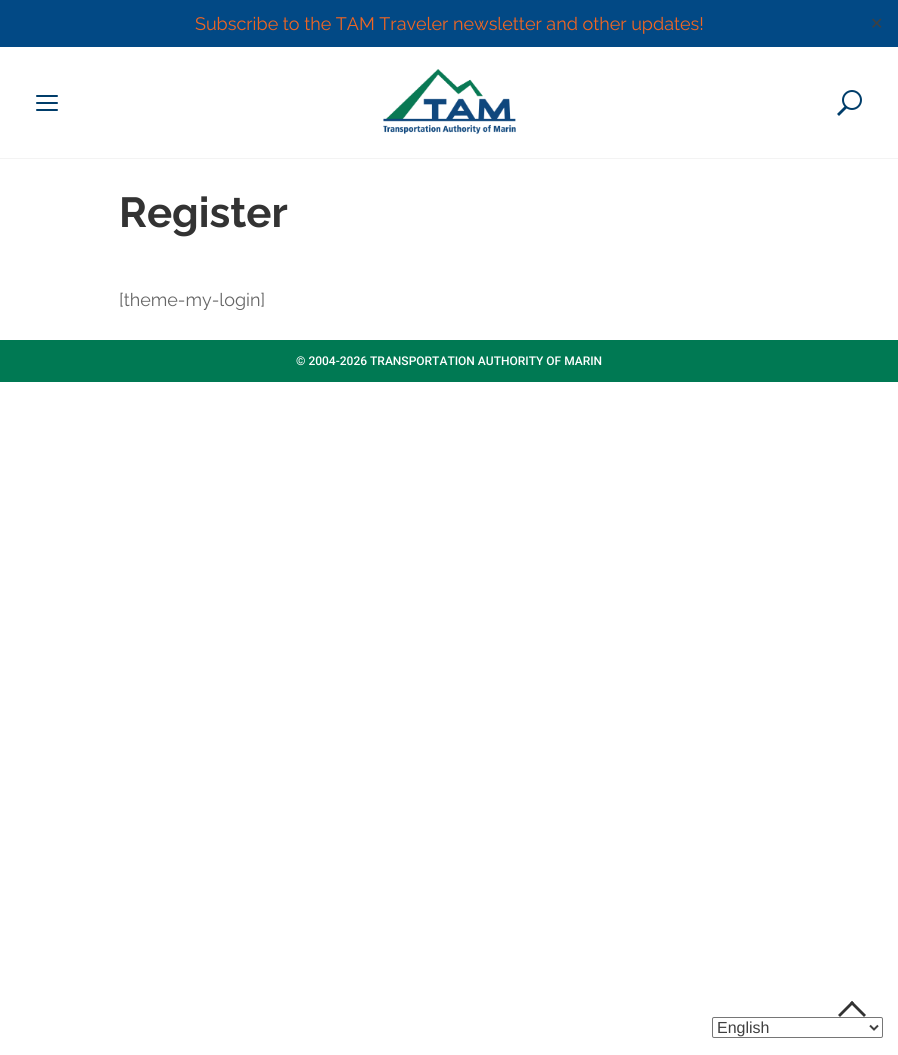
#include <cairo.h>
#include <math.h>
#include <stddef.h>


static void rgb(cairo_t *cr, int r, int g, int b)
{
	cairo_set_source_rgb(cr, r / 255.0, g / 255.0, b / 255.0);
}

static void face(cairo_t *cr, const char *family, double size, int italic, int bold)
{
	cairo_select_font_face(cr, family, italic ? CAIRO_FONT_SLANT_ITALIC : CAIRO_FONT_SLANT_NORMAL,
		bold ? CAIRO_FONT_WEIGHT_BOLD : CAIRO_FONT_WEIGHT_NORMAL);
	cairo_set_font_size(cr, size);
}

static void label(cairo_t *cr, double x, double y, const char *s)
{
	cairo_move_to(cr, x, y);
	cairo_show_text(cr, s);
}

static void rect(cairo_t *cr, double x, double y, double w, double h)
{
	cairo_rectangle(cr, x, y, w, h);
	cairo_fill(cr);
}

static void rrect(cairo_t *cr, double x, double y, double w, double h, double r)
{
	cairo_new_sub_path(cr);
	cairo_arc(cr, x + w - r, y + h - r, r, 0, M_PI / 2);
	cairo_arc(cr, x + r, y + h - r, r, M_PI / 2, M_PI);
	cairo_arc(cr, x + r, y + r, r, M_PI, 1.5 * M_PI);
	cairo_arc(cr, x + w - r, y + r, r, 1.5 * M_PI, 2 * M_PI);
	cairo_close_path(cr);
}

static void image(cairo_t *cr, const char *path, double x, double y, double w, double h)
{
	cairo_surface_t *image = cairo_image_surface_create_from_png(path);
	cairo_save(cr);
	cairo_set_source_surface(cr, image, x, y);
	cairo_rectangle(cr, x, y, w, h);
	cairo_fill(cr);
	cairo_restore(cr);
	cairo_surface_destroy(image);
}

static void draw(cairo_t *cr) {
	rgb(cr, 255, 255, 255);
	cairo_paint(cr);
	rgb(cr, 2, 73, 133);
	rect(cr, 0, 0, 898, 47);
	face(cr, "Raleway", 18, 0, 0);
	rgb(cr, 241, 101, 33);
	label(cr, 195, 30, "Subscribe to the TAM Traveler newsletter and other updates!");
	face(cr, "DejaVu Sans", 16, 0, 0);
	rgb(cr, 64, 64, 64);
	label(cr, 870, 29, "✕");
	rgb(cr, 243, 243, 243);
	rect(cr, 0, 158, 898, 1);
	rgb(cr, 0, 61, 106);
	rrect(cr, 36, 102, 22, 2, 1);
	cairo_fill(cr);
	rrect(cr, 36, 95, 22, 2, 1);
	cairo_fill(cr);
	rrect(cr, 36, 109, 22, 2, 1);
	cairo_fill(cr);
	image(cr, "image0.png", 383, 69, 133, 65);
	cairo_arc(cr, 852, 100, 9, 0, 2 * M_PI);
	cairo_stroke(cr);
	cairo_new_path(cr);
	cairo_move_to(cr, 837, 114);
	cairo_line_to(cr, 845.5, 105.5);
	cairo_line_to(cr, 847.5, 107.5);
	cairo_line_to(cr, 839, 116);
	cairo_close_path(cr);
	cairo_fill(cr);
	face(cr, "Raleway", 42, 0, 1);
	rgb(cr, 51, 51, 51);
	label(cr, 119, 227, "Register");
	face(cr, "Raleway", 18, 0, 0);
	rgb(cr, 102, 102, 102);
	label(cr, 119, 306, "[theme-my-login]");
	rgb(cr, 0, 121, 83);
	rect(cr, 0, 340, 898, 42);
	face(cr, "Roboto Medium", 12, 0, 0);
	rgb(cr, 255, 255, 255);
	label(cr, 296, 365, "© 2004-2026 TRANSPORTATION AUTHORITY OF MARIN");
	rgb(cr, 51, 51, 51);
	cairo_new_path(cr);
	cairo_move_to(cr, 852, 1001);
	cairo_line_to(cr, 866, 1015);
	cairo_line_to(cr, 864, 1017);
	cairo_line_to(cr, 850, 1003);
	cairo_close_path(cr);
	cairo_fill(cr);
	cairo_new_path(cr);
	cairo_move_to(cr, 852, 1001);
	cairo_line_to(cr, 854, 1003);
	cairo_line_to(cr, 840, 1017);
	cairo_line_to(cr, 838, 1015);
	cairo_close_path(cr);
	cairo_fill(cr);
	rrect(cr, 712.5, 1017.5, 170, 20, 1.5);
	rgb(cr, 118, 118, 118);
	cairo_set_line_width(cr, 1);
	cairo_stroke(cr);
	cairo_new_path(cr);
	cairo_move_to(cr, 870, 1025.5);
	cairo_line_to(cr, 874, 1029.5);
	cairo_line_to(cr, 878, 1025.5);
	rgb(cr, 64, 64, 64);
	cairo_set_line_width(cr, 2);
	cairo_stroke(cr);
	face(cr, "Liberation Sans", 16, 0, 0);
	label(cr, 717, 1033, "English");
}

int main(void) {
	cairo_surface_t *surface = cairo_image_surface_create(CAIRO_FORMAT_RGB24, 898, 1055);
	cairo_t *cr = cairo_create(surface);
	cairo_font_options_t *options = cairo_font_options_create();
	cairo_font_options_set_hint_metrics(options, CAIRO_HINT_METRICS_OFF);
	cairo_font_options_set_hint_style(options, CAIRO_HINT_STYLE_NONE);
	cairo_set_font_options(cr, options);
	cairo_set_miter_limit(cr, 4);
	draw(cr);
	cairo_surface_write_to_png(surface, "render.png");
	cairo_font_options_destroy(options);
	cairo_destroy(cr);
	cairo_surface_destroy(surface);
	return 0;
}
